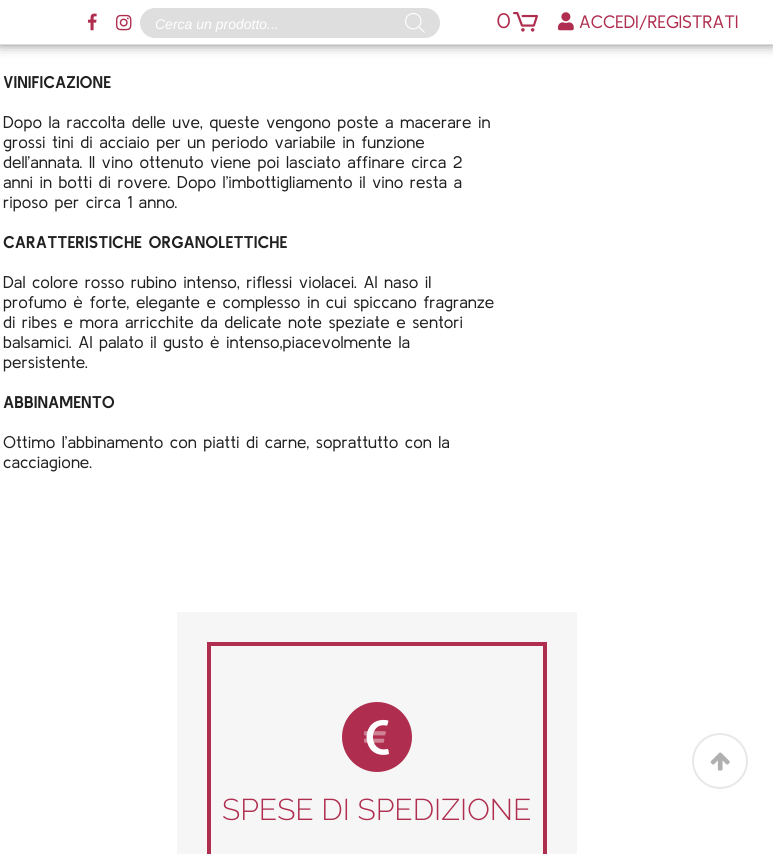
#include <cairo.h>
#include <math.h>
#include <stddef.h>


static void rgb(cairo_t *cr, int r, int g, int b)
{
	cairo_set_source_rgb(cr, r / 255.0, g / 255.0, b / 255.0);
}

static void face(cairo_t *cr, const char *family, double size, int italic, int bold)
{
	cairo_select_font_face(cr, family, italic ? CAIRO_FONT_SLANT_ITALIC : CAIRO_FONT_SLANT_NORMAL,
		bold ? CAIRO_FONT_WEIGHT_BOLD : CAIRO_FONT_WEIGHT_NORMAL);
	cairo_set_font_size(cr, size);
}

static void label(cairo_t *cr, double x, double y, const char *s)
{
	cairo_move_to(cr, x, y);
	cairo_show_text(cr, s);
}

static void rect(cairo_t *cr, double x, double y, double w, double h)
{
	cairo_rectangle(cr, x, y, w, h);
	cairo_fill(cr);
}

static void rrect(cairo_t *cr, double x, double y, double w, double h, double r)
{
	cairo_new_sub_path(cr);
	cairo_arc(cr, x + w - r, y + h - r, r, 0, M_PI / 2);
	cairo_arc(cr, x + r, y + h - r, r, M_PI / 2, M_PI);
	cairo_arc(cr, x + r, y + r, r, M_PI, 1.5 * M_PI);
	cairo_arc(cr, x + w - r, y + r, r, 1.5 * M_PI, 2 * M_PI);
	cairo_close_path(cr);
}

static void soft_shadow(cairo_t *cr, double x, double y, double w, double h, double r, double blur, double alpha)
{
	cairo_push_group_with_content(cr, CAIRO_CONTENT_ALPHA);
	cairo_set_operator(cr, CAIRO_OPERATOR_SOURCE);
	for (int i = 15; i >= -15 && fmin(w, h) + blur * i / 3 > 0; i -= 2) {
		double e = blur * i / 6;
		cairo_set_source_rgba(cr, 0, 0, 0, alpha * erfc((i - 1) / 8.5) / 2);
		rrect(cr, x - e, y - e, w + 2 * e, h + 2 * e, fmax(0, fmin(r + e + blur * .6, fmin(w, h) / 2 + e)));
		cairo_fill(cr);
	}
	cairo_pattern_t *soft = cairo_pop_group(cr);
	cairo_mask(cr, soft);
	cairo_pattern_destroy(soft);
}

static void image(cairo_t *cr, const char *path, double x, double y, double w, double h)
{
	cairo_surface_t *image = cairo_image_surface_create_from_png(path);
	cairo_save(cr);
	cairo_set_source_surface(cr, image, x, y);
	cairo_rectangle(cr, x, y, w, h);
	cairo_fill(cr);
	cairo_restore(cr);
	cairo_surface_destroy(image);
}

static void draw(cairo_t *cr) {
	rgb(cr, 255, 255, 255);
	cairo_paint(cr);
	rgb(cr, 0, 0, 0);
	soft_shadow(cr, 0, -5, 773, 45, 0, 7.5, 1);
	rgb(cr, 255, 255, 255);
	rect(cr, 0, 0, 773, 44);
	rgb(cr, 222, 222, 222);
	rect(cr, 0, 44, 773, 1);
	image(cr, "image0.png", 87, 13, 10, 18);
	image(cr, "image1.png", 116, 14, 16, 17);
	rrect(cr, 140, 8, 300, 30, 15);
	cairo_fill(cr);
	face(cr, "Liberation Sans", 14, 1, 0);
	rgb(cr, 255, 255, 255);
	label(cr, 155, 29, "Cerca un prodotto...");
	image(cr, "image2.png", 405, 13, 20, 20);
	face(cr, "Raleway", 25, 0, 0);
	rgb(cr, 175, 45, 78);
	label(cr, 496, 28, "0");
	image(cr, "image3.png", 513, 12, 25, 20);
	image(cr, "image4.png", 558, 12, 16, 19);
	face(cr, "Kulim Park", 18, 0, 0);
	label(cr, 579, 28, "ACCEDI/REGISTRATI");
	face(cr, "Kulim Park", 17, 0, 1);
	rgb(cr, 33, 33, 33);
	label(cr, 3, 88, "VINIFICAZIONE");
	face(cr, "Kulim Park", 17, 0, 0);
	label(cr, 3, 128, "Dopo la raccolta delle uve, queste vengono poste a macerare in");
	label(cr, 3, 148, "grossi tini di acciaio per un periodo variabile in funzione");
	label(cr, 3, 168, "dell’annata. Il vino ottenuto viene poi lasciato affinare circa 2");
	label(cr, 3, 188, "anni in botti di rovere. Dopo l’imbottigliamento il vino resta a");
	label(cr, 3, 208, "riposo per circa 1 anno.");
	face(cr, "Kulim Park", 17, 0, 1);
	label(cr, 3, 248, "CARATTERISTICHE ORGANOLETTICHE");
	face(cr, "Kulim Park", 17, 0, 0);
	label(cr, 3, 288, "Dal colore rosso rubino intenso, riflessi violacei. Al naso il");
	label(cr, 3, 308, "profumo è forte, elegante e complesso in cui spiccano fragranze");
	label(cr, 3, 328, "di ribes e mora arricchite da delicate note speziate e sentori");
	label(cr, 3, 348, "balsamici. Al palato il gusto è intenso,piacevolmente la");
	label(cr, 3, 368, "persistente.");
	face(cr, "Kulim Park", 17, 0, 1);
	label(cr, 3, 408, "ABBINAMENTO");
	face(cr, "Kulim Park", 17, 0, 0);
	label(cr, 3, 448, "Ottimo l’abbinamento con piatti di carne, soprattutto con la");
	label(cr, 3, 468, "cacciagione.");
	rgb(cr, 246, 246, 246);
	rect(cr, 177, 612, 400, 242);
	cairo_rectangle(cr, 209, 644, 336, 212);
	rgb(cr, 175, 45, 78);
	cairo_set_line_width(cr, 4);
	cairo_stroke(cr);
	cairo_arc(cr, 377, 737, 35, 0, 2 * M_PI);
	cairo_fill(cr);
	image(cr, "image5.png", 366, 719, 23, 36);
	image(cr, "image6.png", 364, 731, 22, 12);
	face(cr, "Raleway Light", 30, 0, 0);
	label(cr, 222, 820, "SPESE DI SPEDIZIONE");
	cairo_new_path(cr);
	cairo_arc(cr, 720, 761, 27, 0, 2 * M_PI);
	rgb(cr, 232, 232, 232);
	cairo_set_line_width(cr, 2);
	cairo_stroke(cr);
	image(cr, "image7.png", 710, 752, 20, 19);
}

int main(void) {
	cairo_surface_t *surface = cairo_image_surface_create(CAIRO_FORMAT_RGB24, 773, 854);
	cairo_t *cr = cairo_create(surface);
	cairo_font_options_t *options = cairo_font_options_create();
	cairo_font_options_set_hint_metrics(options, CAIRO_HINT_METRICS_OFF);
	cairo_font_options_set_hint_style(options, CAIRO_HINT_STYLE_NONE);
	cairo_set_font_options(cr, options);
	cairo_set_miter_limit(cr, 4);
	draw(cr);
	cairo_surface_write_to_png(surface, "render.png");
	cairo_font_options_destroy(options);
	cairo_destroy(cr);
	cairo_surface_destroy(surface);
	return 0;
}
